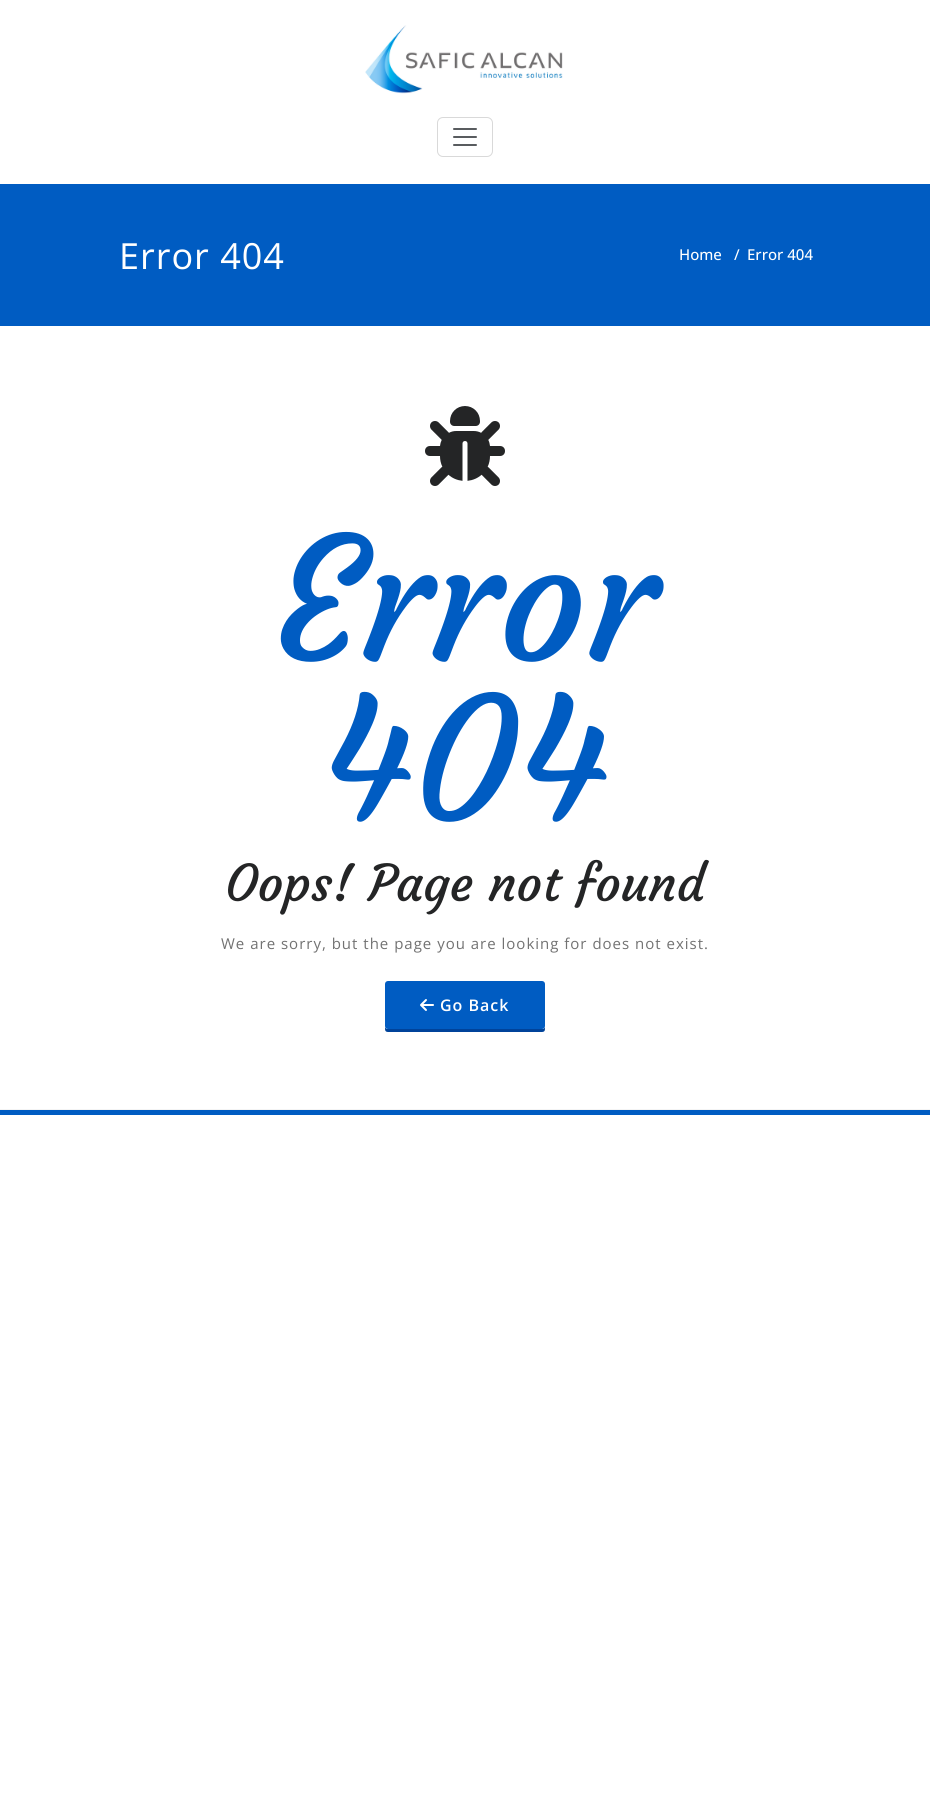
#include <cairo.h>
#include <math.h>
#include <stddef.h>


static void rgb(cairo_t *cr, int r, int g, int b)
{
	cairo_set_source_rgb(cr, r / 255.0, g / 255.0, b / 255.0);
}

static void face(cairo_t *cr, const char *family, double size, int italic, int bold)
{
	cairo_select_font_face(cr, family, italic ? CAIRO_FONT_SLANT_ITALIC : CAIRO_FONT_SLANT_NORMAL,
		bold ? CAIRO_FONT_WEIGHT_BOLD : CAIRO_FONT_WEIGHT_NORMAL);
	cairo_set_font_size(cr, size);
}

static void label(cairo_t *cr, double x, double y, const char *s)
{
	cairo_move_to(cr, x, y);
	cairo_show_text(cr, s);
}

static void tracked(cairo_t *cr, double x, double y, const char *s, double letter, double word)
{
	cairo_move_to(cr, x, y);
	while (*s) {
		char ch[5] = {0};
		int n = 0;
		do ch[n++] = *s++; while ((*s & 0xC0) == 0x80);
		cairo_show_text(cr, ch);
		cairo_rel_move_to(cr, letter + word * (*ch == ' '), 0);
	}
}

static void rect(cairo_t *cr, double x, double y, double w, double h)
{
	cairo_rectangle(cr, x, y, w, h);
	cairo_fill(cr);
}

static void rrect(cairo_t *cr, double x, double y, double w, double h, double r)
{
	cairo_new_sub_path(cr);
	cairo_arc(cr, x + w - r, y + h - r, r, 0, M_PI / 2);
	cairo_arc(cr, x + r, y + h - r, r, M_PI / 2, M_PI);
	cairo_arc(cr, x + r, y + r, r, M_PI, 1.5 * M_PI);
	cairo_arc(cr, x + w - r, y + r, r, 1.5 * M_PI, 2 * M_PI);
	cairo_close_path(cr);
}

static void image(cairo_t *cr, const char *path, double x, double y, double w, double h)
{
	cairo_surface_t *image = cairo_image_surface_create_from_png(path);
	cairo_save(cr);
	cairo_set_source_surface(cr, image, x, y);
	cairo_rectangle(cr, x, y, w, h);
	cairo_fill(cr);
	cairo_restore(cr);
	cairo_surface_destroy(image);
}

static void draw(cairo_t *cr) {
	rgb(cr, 255, 255, 255);
	cairo_paint(cr);
	image(cr, "image0.png", 365, 25, 198, 69);
	rrect(cr, 437.5, 117.5, 55, 39, 5.5);
	rgb(cr, 217, 217, 217);
	cairo_set_line_width(cr, 1);
	cairo_stroke(cr);
	image(cr, "image1.png", 453, 128, 24, 18);
	rgb(cr, 0, 92, 194);
	rect(cr, 0, 184, 930, 142);
	face(cr, "Open Sans", 36, 0, 0);
	rgb(cr, 255, 255, 255);
	tracked(cr, 119, 269, "Error 404", 1, 0);
	face(cr, "Open Sans Medium", 15, 0, 0);
	label(cr, 679, 260, "Home");
	label(cr, 734, 260, "/");
	label(cr, 747, 260, "Error 404");
	image(cr, "image2.png", 425, 406, 80, 80);
	face(cr, "Courgette", 170, 0, 0);
	rgb(cr, 0, 92, 194);
	label(cr, 274, 661, "Error");
	label(cr, 322, 821, "404");
	face(cr, "Courgette", 50, 0, 0);
	rgb(cr, 36, 37, 38);
	label(cr, 225, 901, "Oops! Page not found");
	face(cr, "Open Sans", 15, 0, 0);
	rgb(cr, 114, 114, 114);
	tracked(cr, 221, 949, "We are sorry, but the page you are looking for does not exist.", 1, 0);
	rgb(cr, 0, 67, 154);
	cairo_new_path(cr);
	cairo_move_to(cr, 385, 1026);
	cairo_line_to(cr, 385, 1029);
	cairo_curve_to(cr, 385, 1031, 386, 1032, 388, 1032);
	cairo_line_to(cr, 542, 1032);
	cairo_curve_to(cr, 544, 1032, 545, 1031, 545, 1029);
	cairo_line_to(cr, 545, 1026);
	cairo_curve_to(cr, 545, 1028, 544, 1029, 542, 1029);
	cairo_line_to(cr, 388, 1029);
	cairo_curve_to(cr, 386, 1029, 385, 1028, 385, 1026);
	cairo_close_path(cr);
	cairo_fill(cr);
	rgb(cr, 0, 92, 194);
	rrect(cr, 385, 981, 160, 48, 3);
	cairo_fill(cr);
	image(cr, "image3.png", 420, 999, 14, 12);
	face(cr, "Open Sans SemiBold", 16, 0, 0);
	rgb(cr, 255, 255, 255);
	tracked(cr, 440, 1011, "Go Back", 1, 0);
	rgb(cr, 244, 244, 244);
	rect(cr, 0, 1109, 930, 1);
	rgb(cr, 0, 92, 194);
	rect(cr, 0, 1110, 930, 5);
}

int main(void) {
	cairo_surface_t *surface = cairo_image_surface_create(CAIRO_FORMAT_RGB24, 930, 1807);
	cairo_t *cr = cairo_create(surface);
	cairo_font_options_t *options = cairo_font_options_create();
	cairo_font_options_set_hint_metrics(options, CAIRO_HINT_METRICS_OFF);
	cairo_font_options_set_hint_style(options, CAIRO_HINT_STYLE_NONE);
	cairo_set_font_options(cr, options);
	cairo_set_miter_limit(cr, 4);
	draw(cr);
	cairo_surface_write_to_png(surface, "render.png");
	cairo_font_options_destroy(options);
	cairo_destroy(cr);
	cairo_surface_destroy(surface);
	return 0;
}
